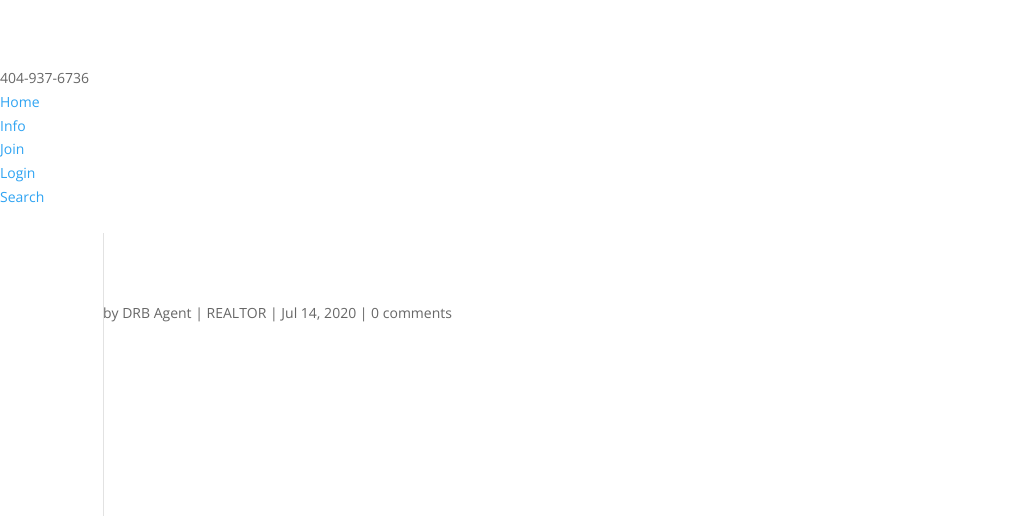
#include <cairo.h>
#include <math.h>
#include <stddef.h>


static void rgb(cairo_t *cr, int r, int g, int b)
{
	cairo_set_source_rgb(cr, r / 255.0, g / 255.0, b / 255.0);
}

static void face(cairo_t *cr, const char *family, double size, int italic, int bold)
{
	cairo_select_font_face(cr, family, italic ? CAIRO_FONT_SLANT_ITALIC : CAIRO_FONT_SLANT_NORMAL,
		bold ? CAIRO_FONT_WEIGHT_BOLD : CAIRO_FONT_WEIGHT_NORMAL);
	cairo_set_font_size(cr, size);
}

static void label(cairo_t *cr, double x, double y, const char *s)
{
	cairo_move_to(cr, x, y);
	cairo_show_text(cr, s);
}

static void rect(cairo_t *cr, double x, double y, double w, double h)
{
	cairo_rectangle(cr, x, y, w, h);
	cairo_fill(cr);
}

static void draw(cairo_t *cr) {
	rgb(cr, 255, 255, 255);
	cairo_paint(cr);
	face(cr, "Open Sans", 14, 0, 0);
	rgb(cr, 102, 102, 102);
	label(cr, 0, 83, "404-937-6736");
	rgb(cr, 46, 163, 242);
	label(cr, 0, 107, "Home");
	label(cr, 0, 131, "Info");
	label(cr, 0, 154, "Join");
	label(cr, 0, 178, "Login");
	label(cr, 0, 202, "Search");
	rgb(cr, 102, 102, 102);
	label(cr, 103, 318, "by DRB Agent | REALTOR | Jul 14, 2020 | 0 comments");
	rgb(cr, 226, 226, 226);
	rect(cr, 103, 233, 1, 283);
}

int main(void) {
	cairo_surface_t *surface = cairo_image_surface_create(CAIRO_FORMAT_RGB24, 1025, 516);
	cairo_t *cr = cairo_create(surface);
	cairo_font_options_t *options = cairo_font_options_create();
	cairo_font_options_set_hint_metrics(options, CAIRO_HINT_METRICS_OFF);
	cairo_font_options_set_hint_style(options, CAIRO_HINT_STYLE_NONE);
	cairo_set_font_options(cr, options);
	cairo_set_miter_limit(cr, 4);
	draw(cr);
	cairo_surface_write_to_png(surface, "render.png");
	cairo_font_options_destroy(options);
	cairo_destroy(cr);
	cairo_surface_destroy(surface);
	return 0;
}
